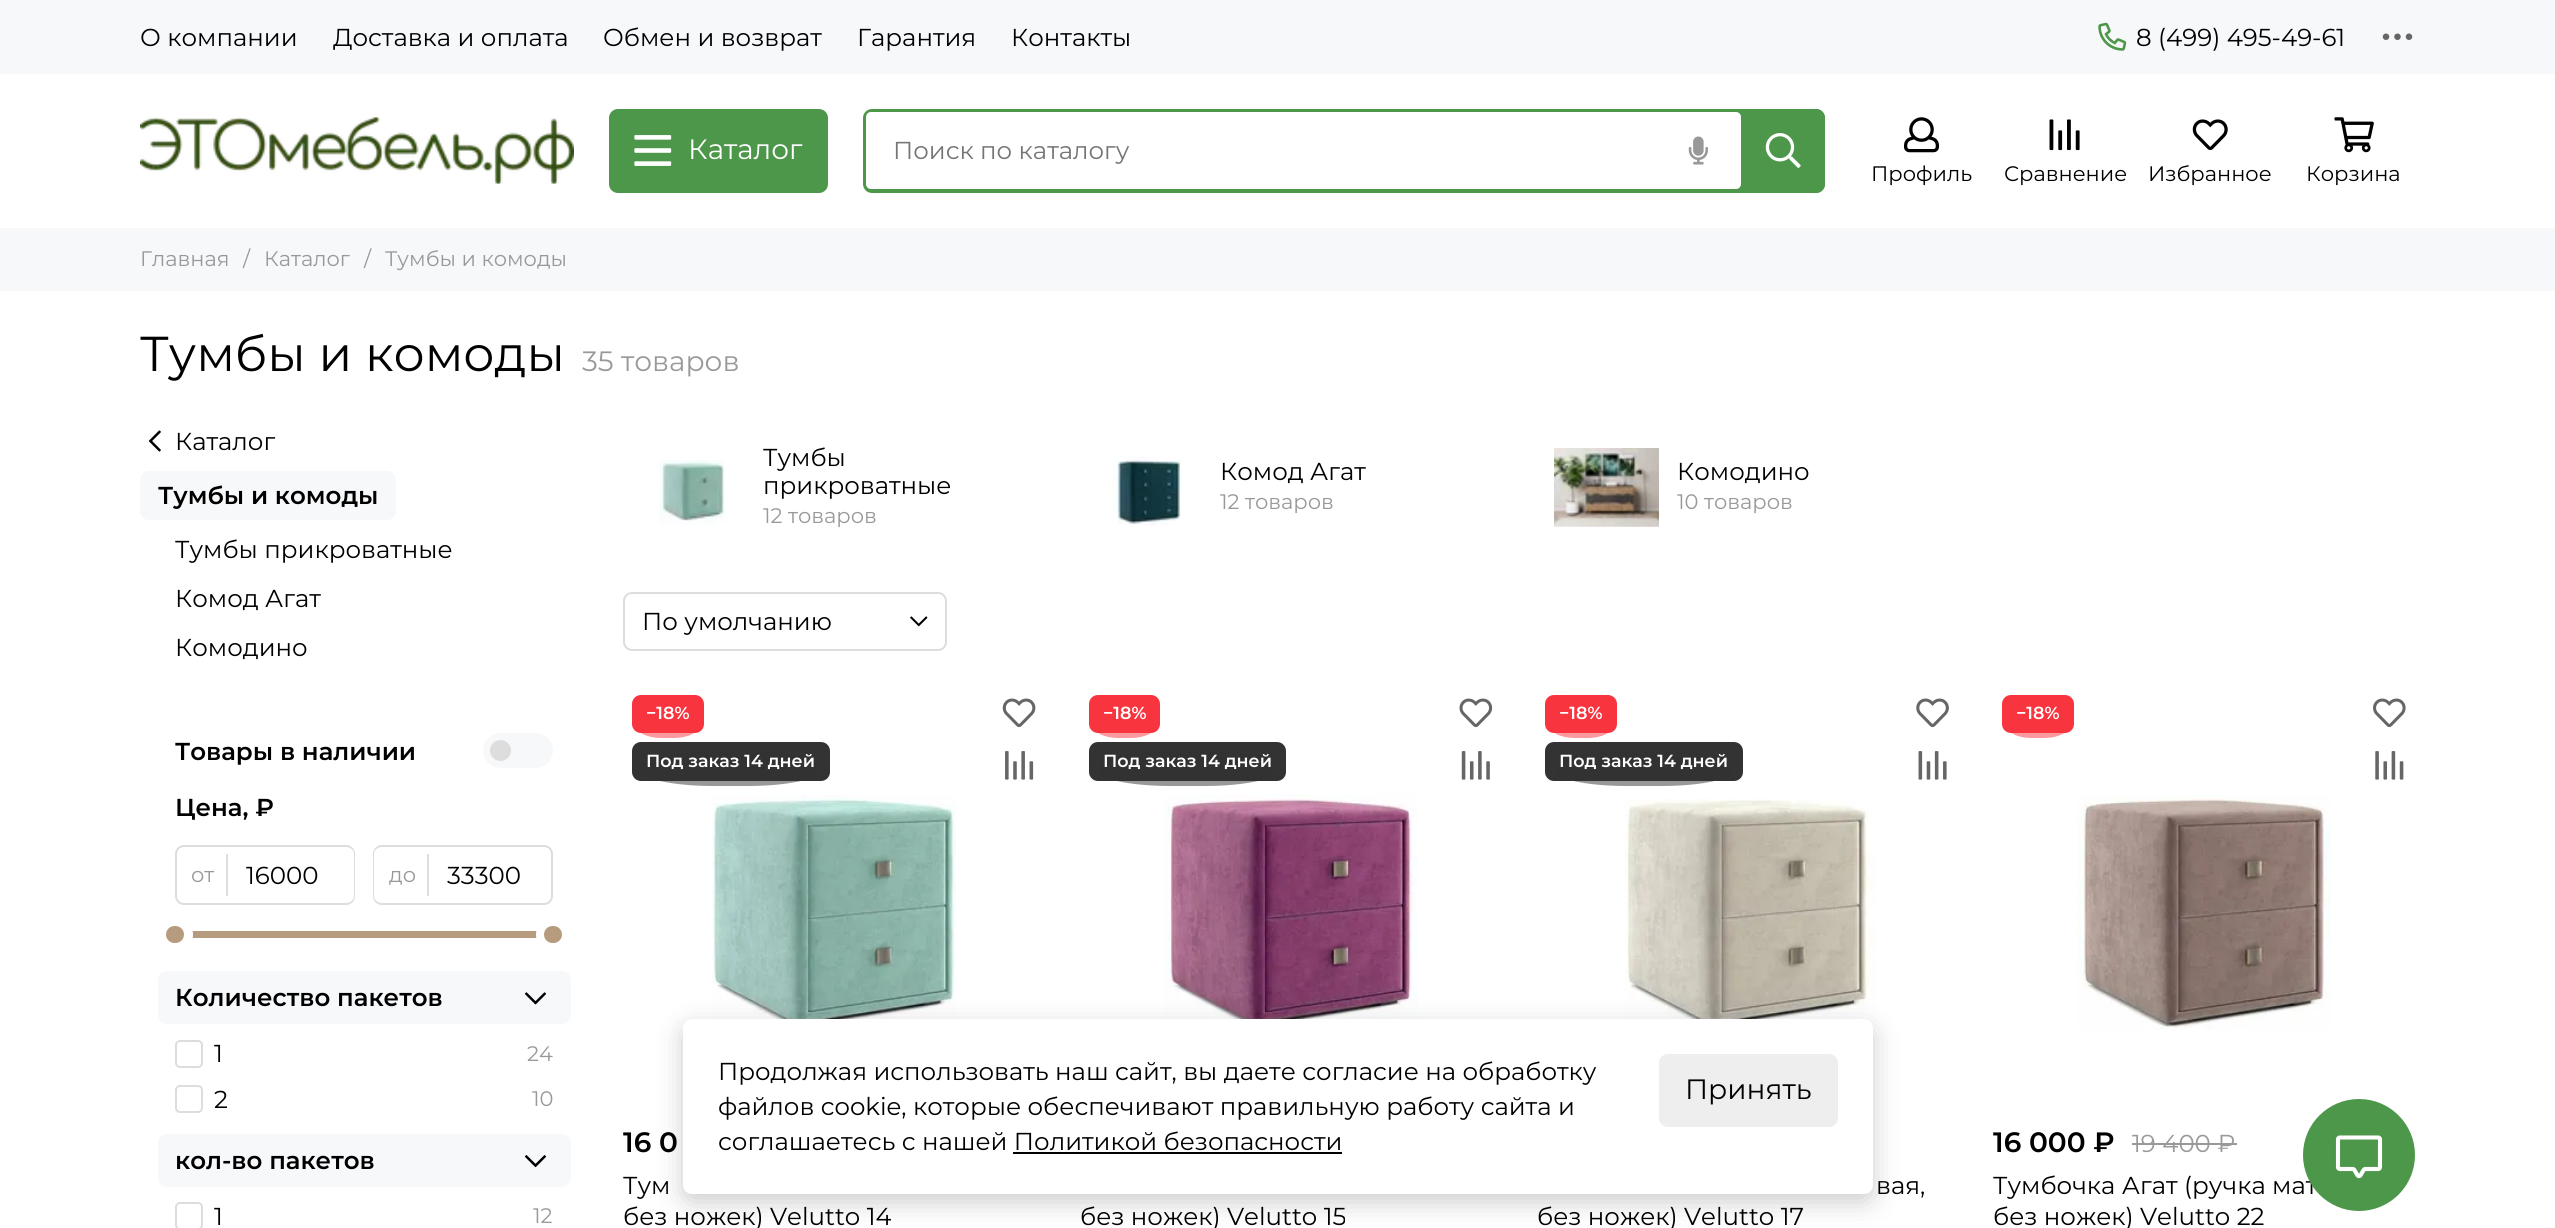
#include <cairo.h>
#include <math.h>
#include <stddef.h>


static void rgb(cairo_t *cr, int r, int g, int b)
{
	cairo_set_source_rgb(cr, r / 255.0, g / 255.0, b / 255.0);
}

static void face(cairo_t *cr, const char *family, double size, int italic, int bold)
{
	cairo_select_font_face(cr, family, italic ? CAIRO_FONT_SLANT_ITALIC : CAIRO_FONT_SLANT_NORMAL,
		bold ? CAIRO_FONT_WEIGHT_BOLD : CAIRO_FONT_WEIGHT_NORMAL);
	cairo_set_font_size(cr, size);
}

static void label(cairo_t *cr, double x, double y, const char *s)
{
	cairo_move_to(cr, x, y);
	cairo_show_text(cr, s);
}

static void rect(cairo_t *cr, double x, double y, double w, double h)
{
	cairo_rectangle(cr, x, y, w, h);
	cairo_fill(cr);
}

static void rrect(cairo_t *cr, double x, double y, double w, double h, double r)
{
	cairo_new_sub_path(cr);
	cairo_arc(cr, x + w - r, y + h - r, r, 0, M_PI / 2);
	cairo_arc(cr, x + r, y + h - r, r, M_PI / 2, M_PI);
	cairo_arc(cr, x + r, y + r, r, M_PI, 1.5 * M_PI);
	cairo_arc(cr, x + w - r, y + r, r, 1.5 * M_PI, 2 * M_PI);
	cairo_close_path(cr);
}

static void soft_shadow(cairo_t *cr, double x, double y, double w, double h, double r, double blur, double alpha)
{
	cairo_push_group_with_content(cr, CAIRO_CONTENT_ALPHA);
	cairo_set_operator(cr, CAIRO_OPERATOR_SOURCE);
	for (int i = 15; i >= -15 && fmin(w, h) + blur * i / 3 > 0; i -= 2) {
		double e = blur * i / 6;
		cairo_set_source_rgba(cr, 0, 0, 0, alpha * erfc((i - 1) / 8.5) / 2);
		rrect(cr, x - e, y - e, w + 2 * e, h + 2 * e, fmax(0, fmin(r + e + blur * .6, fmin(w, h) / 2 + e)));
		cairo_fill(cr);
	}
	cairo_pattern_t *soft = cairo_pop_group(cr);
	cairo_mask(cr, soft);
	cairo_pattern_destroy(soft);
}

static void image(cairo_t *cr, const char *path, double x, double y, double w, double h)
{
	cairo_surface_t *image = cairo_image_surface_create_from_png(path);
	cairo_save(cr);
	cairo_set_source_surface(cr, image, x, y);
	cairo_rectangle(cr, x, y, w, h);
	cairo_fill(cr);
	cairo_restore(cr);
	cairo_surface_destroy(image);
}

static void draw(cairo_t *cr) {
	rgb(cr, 255, 255, 255);
	cairo_paint(cr);
	rgb(cr, 247, 248, 250);
	rect(cr, 0, 0, 2555, 74);
	face(cr, "Montserrat", 24.5, 0, 0);
	rgb(cr, 0, 0, 0);
	label(cr, 140, 46, "О компании");
	label(cr, 333, 46, "Доставка и оплата");
	label(cr, 603, 46, "Обмен и возврат");
	label(cr, 857, 46, "Гарантия");
	label(cr, 1011, 46, "Контакты");
	image(cr, "image0.png", 2098, 22, 29, 29);
	label(cr, 2136, 46, "8 (499) 495-49-61");
	image(cr, "image1.png", 2382, 33, 31, 7);
	image(cr, "image2.png", 140, 117, 434, 67);
	rgb(cr, 77, 151, 74);
	rrect(cr, 609, 109, 219, 84, 9);
	cairo_fill(cr);
	image(cr, "image3.png", 634, 135, 38, 31);
	face(cr, "Montserrat", 28, 0, 0);
	rgb(cr, 255, 255, 255);
	label(cr, 688, 159, "Каталог");
	rgb(cr, 77, 151, 74);
	rrect(cr, 863, 109, 962, 84, 9);
	cairo_fill(cr);
	rgb(cr, 255, 255, 255);
	rrect(cr, 866, 112, 875, 77, 5);
	cairo_fill(cr);
	face(cr, "Montserrat", 24.5, 0, 0);
	rgb(cr, 117, 117, 117);
	label(cr, 893, 159, "Поиск по каталогу");
	image(cr, "image4.png", 1688, 136, 20, 29);
	rgb(cr, 77, 151, 74);
	cairo_new_path(cr);
	cairo_move_to(cr, 1741, 109);
	cairo_line_to(cr, 1816, 109);
	cairo_curve_to(cr, 1821, 109, 1825, 113, 1825, 118);
	cairo_line_to(cr, 1825, 184);
	cairo_curve_to(cr, 1825, 189, 1821, 193, 1816, 193);
	cairo_line_to(cr, 1741, 193);
	cairo_close_path(cr);
	cairo_fill(cr);
	image(cr, "image5.png", 1765, 133, 36, 35);
	image(cr, "image6.png", 1904, 117, 35, 36);
	face(cr, "Montserrat", 21, 0, 0);
	rgb(cr, 0, 0, 0);
	label(cr, 1871, 181, "Профиль");
	image(cr, "image7.png", 2049, 119, 31, 32);
	label(cr, 2004, 181, "Сравнение");
	image(cr, "image8.png", 2192, 119, 36, 32);
	label(cr, 2148, 181, "Избранное");
	image(cr, "image9.png", 2334, 117, 40, 36);
	label(cr, 2306, 181, "Корзина");
	rgb(cr, 247, 248, 250);
	rect(cr, 0, 228, 2555, 63);
	rgb(cr, 153, 153, 153);
	label(cr, 140, 266, "Главная");
	label(cr, 243, 266, "/");
	label(cr, 264, 266, "Каталог");
	label(cr, 364, 266, "/");
	label(cr, 385, 266, "Тумбы и комоды");
	face(cr, "Montserrat", 49, 0, 0);
	rgb(cr, 0, 0, 0);
	label(cr, 140, 371, "Тумбы и комоды");
	face(cr, "Montserrat", 28, 0, 0);
	rgb(cr, 153, 153, 153);
	label(cr, 582, 371, "35 товаров");
	image(cr, "image10.png", 148, 430, 13, 22);
	face(cr, "Montserrat", 24.5, 0, 0);
	rgb(cr, 0, 0, 0);
	label(cr, 175, 450, "Каталог");
	rgb(cr, 247, 248, 250);
	rrect(cr, 140, 471, 256, 49, 9);
	cairo_fill(cr);
	face(cr, "Montserrat SemiBold", 24.5, 0, 0);
	rgb(cr, 0, 0, 0);
	label(cr, 158, 504, "Тумбы и комоды");
	face(cr, "Montserrat", 24.5, 0, 0);
	label(cr, 175, 558, "Тумбы прикроватные");
	label(cr, 175, 607, "Комод Агат");
	label(cr, 175, 656, "Комодино");
	face(cr, "Montserrat SemiBold", 24.5, 0, 0);
	label(cr, 175, 760, "Товары в наличии");
	rgb(cr, 247, 248, 250);
	rrect(cr, 483, 733, 70, 35, 17.5);
	cairo_fill(cr);
	rgb(cr, 221, 221, 221);
	cairo_arc(cr, 500.5, 750.5, 10.5, 0, 2 * M_PI);
	cairo_fill(cr);
	rgb(cr, 0, 0, 0);
	label(cr, 175, 816, "Цена, ₽");
	rgb(cr, 221, 221, 221);
	cairo_set_fill_rule(cr, CAIRO_FILL_RULE_EVEN_ODD);
	cairo_new_path(cr);
	cairo_move_to(cr, 184, 845);
	cairo_line_to(cr, 228, 845);
	cairo_line_to(cr, 228, 905);
	cairo_line_to(cr, 184, 905);
	cairo_curve_to(cr, 179, 905, 175, 901, 175, 896);
	cairo_line_to(cr, 175, 854);
	cairo_curve_to(cr, 175, 849, 179, 845, 184, 845);
	cairo_close_path(cr);
	cairo_move_to(cr, 184, 847);
	cairo_line_to(cr, 228, 847);
	cairo_line_to(cr, 228, 903);
	cairo_line_to(cr, 184, 903);
	cairo_curve_to(cr, 180, 903, 177, 900, 177, 896);
	cairo_line_to(cr, 177, 854);
	cairo_curve_to(cr, 177, 850, 180, 847, 184, 847);
	cairo_close_path(cr);
	cairo_fill(cr);
	face(cr, "Montserrat", 21, 0, 0);
	rgb(cr, 153, 153, 153);
	label(cr, 191, 882, "от");
	rgb(cr, 221, 221, 221);
	rect(cr, 226, 854, 2, 42);
	cairo_new_path(cr);
	cairo_move_to(cr, 228, 845);
	cairo_line_to(cr, 346, 845);
	cairo_curve_to(cr, 351, 845, 355, 849, 355, 854);
	cairo_line_to(cr, 355, 896);
	cairo_curve_to(cr, 355, 901, 351, 905, 346, 905);
	cairo_line_to(cr, 228, 905);
	cairo_close_path(cr);
	cairo_move_to(cr, 228, 847);
	cairo_line_to(cr, 346, 847);
	cairo_curve_to(cr, 350, 847, 354, 850, 354, 854);
	cairo_line_to(cr, 354, 896);
	cairo_curve_to(cr, 354, 900, 350, 903, 346, 903);
	cairo_line_to(cr, 228, 903);
	cairo_close_path(cr);
	cairo_fill(cr);
	face(cr, "Montserrat", 24.5, 0, 0);
	rgb(cr, 0, 0, 0);
	label(cr, 246, 884, "16000");
	rgb(cr, 221, 221, 221);
	cairo_new_path(cr);
	cairo_move_to(cr, 382, 845);
	cairo_line_to(cr, 429, 845);
	cairo_line_to(cr, 429, 905);
	cairo_line_to(cr, 382, 905);
	cairo_curve_to(cr, 377, 905, 373, 901, 373, 896);
	cairo_line_to(cr, 373, 854);
	cairo_curve_to(cr, 373, 849, 377, 845, 382, 845);
	cairo_close_path(cr);
	cairo_move_to(cr, 382, 847);
	cairo_line_to(cr, 429, 847);
	cairo_line_to(cr, 429, 903);
	cairo_line_to(cr, 382, 903);
	cairo_curve_to(cr, 378, 903, 374, 900, 374, 896);
	cairo_line_to(cr, 374, 854);
	cairo_curve_to(cr, 374, 850, 378, 847, 382, 847);
	cairo_close_path(cr);
	cairo_fill(cr);
	face(cr, "Montserrat", 21, 0, 0);
	rgb(cr, 153, 153, 153);
	label(cr, 389, 882, "до");
	rgb(cr, 221, 221, 221);
	rect(cr, 427, 854, 2, 42);
	cairo_new_path(cr);
	cairo_move_to(cr, 429, 845);
	cairo_line_to(cr, 544, 845);
	cairo_curve_to(cr, 549, 845, 553, 849, 553, 854);
	cairo_line_to(cr, 553, 896);
	cairo_curve_to(cr, 553, 901, 549, 905, 544, 905);
	cairo_line_to(cr, 429, 905);
	cairo_close_path(cr);
	cairo_move_to(cr, 429, 847);
	cairo_line_to(cr, 544, 847);
	cairo_curve_to(cr, 548, 847, 551, 850, 551, 854);
	cairo_line_to(cr, 551, 896);
	cairo_curve_to(cr, 551, 900, 548, 903, 544, 903);
	cairo_line_to(cr, 429, 903);
	cairo_close_path(cr);
	cairo_fill(cr);
	face(cr, "Montserrat", 24.5, 0, 0);
	rgb(cr, 0, 0, 0);
	label(cr, 447, 884, "33300");
	rgb(cr, 183, 155, 126);
	rect(cr, 192, 931, 345, 7);
	rgb(cr, 255, 255, 255);
	cairo_new_path(cr);
	cairo_arc(cr, 175.5, 934.5, 17.5, 0, 2 * M_PI);
	cairo_fill(cr);
	rgb(cr, 183, 155, 126);
	rrect(cr, 166, 926, 18, 17, 8.5);
	cairo_fill(cr);
	rgb(cr, 255, 255, 255);
	cairo_arc(cr, 553.5, 934.5, 17.5, 0, 2 * M_PI);
	cairo_fill(cr);
	rgb(cr, 183, 155, 126);
	rrect(cr, 544, 926, 18, 17, 8.5);
	cairo_fill(cr);
	rgb(cr, 247, 248, 250);
	rrect(cr, 158, 971, 413, 53, 9);
	cairo_fill(cr);
	face(cr, "Montserrat SemiBold", 24.5, 0, 0);
	rgb(cr, 0, 0, 0);
	label(cr, 175, 1006, "Количество пакетов");
	image(cr, "image11.png", 524, 992, 23, 13);
	rrect(cr, 176, 1041, 26, 26, 4);
	rgb(cr, 221, 221, 221);
	cairo_stroke(cr);
	face(cr, "Montserrat", 24.5, 0, 0);
	rgb(cr, 0, 0, 0);
	label(cr, 214, 1062, "1");
	face(cr, "Montserrat", 21, 0, 0);
	rgb(cr, 153, 153, 153);
	label(cr, 527, 1061, "24");
	rrect(cr, 176, 1086, 26, 26, 4);
	rgb(cr, 221, 221, 221);
	cairo_stroke(cr);
	face(cr, "Montserrat", 24.5, 0, 0);
	rgb(cr, 0, 0, 0);
	label(cr, 214, 1108, "2");
	face(cr, "Montserrat", 21, 0, 0);
	rgb(cr, 153, 153, 153);
	label(cr, 532, 1106, "10");
	rgb(cr, 247, 248, 250);
	rrect(cr, 158, 1134, 413, 53, 9);
	cairo_fill(cr);
	face(cr, "Montserrat SemiBold", 24.5, 0, 0);
	rgb(cr, 0, 0, 0);
	label(cr, 175, 1169, "кол-во пакетов");
	image(cr, "image12.png", 524, 1155, 23, 13);
	rrect(cr, 176, 1203, 26, 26, 4);
	rgb(cr, 221, 221, 221);
	cairo_stroke(cr);
	face(cr, "Montserrat", 24.5, 0, 0);
	rgb(cr, 0, 0, 0);
	label(cr, 214, 1225, "1");
	face(cr, "Montserrat", 21, 0, 0);
	rgb(cr, 153, 153, 153);
	label(cr, 533, 1223, "12");
	image(cr, "image13.png", 659, 460, 66, 65);
	face(cr, "Montserrat", 24.5, 0, 0);
	rgb(cr, 0, 0, 0);
	label(cr, 763, 466, "Тумбы");
	label(cr, 763, 494, "прикроватные");
	face(cr, "Montserrat", 21, 0, 0);
	rgb(cr, 153, 153, 153);
	label(cr, 763, 523, "12 товаров");
	image(cr, "image14.png", 1112, 456, 70, 70);
	face(cr, "Montserrat", 24.5, 0, 0);
	rgb(cr, 0, 0, 0);
	label(cr, 1220, 480, "Комод Агат");
	face(cr, "Montserrat", 21, 0, 0);
	rgb(cr, 153, 153, 153);
	label(cr, 1220, 509, "12 товаров");
	image(cr, "image15.png", 1554, 448, 105, 79);
	face(cr, "Montserrat", 24.5, 0, 0);
	rgb(cr, 0, 0, 0);
	label(cr, 1677, 480, "Комодино");
	face(cr, "Montserrat", 21, 0, 0);
	rgb(cr, 153, 153, 153);
	label(cr, 1677, 509, "10 товаров");
	image(cr, "image16.png", 910, 616, 18, 11);
	rrect(cr, 624, 593, 322, 57, 8);
	rgb(cr, 221, 221, 221);
	cairo_stroke(cr);
	face(cr, "Montserrat", 24.5, 0, 0);
	rgb(cr, 0, 0, 0);
	label(cr, 642, 630, "По умолчанию");
	rgb(cr, 248, 53, 62);
	rrect(cr, 632, 695, 72, 38, 9);
	cairo_fill(cr);
	cairo_set_source_rgba(cr, 0.973, 0.208, 0.243, 0.5);
	cairo_set_fill_rule(cr, CAIRO_FILL_RULE_WINDING);
	cairo_new_path(cr);
	cairo_move_to(cr, 661, 704);
	cairo_line_to(cr, 674, 704);
	cairo_curve_to(cr, 688, 704, 700, 710, 700, 718);
	cairo_line_to(cr, 700, 724);
	cairo_curve_to(cr, 700, 732, 688, 738, 674, 738);
	cairo_line_to(cr, 661, 738);
	cairo_curve_to(cr, 647, 738, 635, 732, 635, 724);
	cairo_line_to(cr, 635, 718);
	cairo_curve_to(cr, 635, 710, 647, 704, 661, 704);
	cairo_close_path(cr);
	cairo_fill(cr);
	face(cr, "Montserrat SemiBold", 17.5, 0, 0);
	rgb(cr, 255, 255, 255);
	label(cr, 646, 719, "−18%");
	rgb(cr, 51, 51, 51);
	rrect(cr, 632, 742, 198, 39, 9);
	cairo_fill(cr);
	cairo_set_source_rgba(cr, 0.2, 0.2, 0.2, 0.5);
	cairo_new_path(cr);
	cairo_move_to(cr, 713, 751);
	cairo_line_to(cr, 748, 751);
	cairo_curve_to(cr, 787, 751, 819, 757, 819, 765);
	cairo_line_to(cr, 819, 772);
	cairo_curve_to(cr, 819, 779, 787, 786, 748, 786);
	cairo_line_to(cr, 713, 786);
	cairo_curve_to(cr, 674, 786, 642, 779, 642, 772);
	cairo_line_to(cr, 642, 765);
	cairo_curve_to(cr, 642, 757, 674, 751, 713, 751);
	cairo_close_path(cr);
	cairo_fill(cr);
	rgb(cr, 255, 255, 255);
	label(cr, 646, 767, "Под заказ 14 дней");
	image(cr, "image17.png", 1002, 698, 34, 30);
	image(cr, "image18.png", 1005, 751, 29, 29);
	image(cr, "image19.png", 712, 795, 244, 224);
	face(cr, "Montserrat SemiBold", 28, 0, 0);
	rgb(cr, 0, 0, 0);
	label(cr, 623, 1152, "16 0");
	face(cr, "Montserrat", 24.5, 0, 0);
	label(cr, 623, 1194, "Тум");
	label(cr, 623, 1225, "без ножек) Velutto 14");
	rgb(cr, 248, 53, 62);
	rrect(cr, 1089, 695, 71, 38, 9);
	cairo_fill(cr);
	cairo_set_source_rgba(cr, 0.973, 0.208, 0.243, 0.5);
	cairo_new_path(cr);
	cairo_move_to(cr, 1118, 704);
	cairo_line_to(cr, 1131, 704);
	cairo_curve_to(cr, 1145, 704, 1157, 710, 1157, 718);
	cairo_line_to(cr, 1157, 724);
	cairo_curve_to(cr, 1157, 732, 1145, 738, 1131, 738);
	cairo_line_to(cr, 1118, 738);
	cairo_curve_to(cr, 1104, 738, 1092, 732, 1092, 724);
	cairo_line_to(cr, 1092, 718);
	cairo_curve_to(cr, 1092, 710, 1104, 704, 1118, 704);
	cairo_close_path(cr);
	cairo_fill(cr);
	face(cr, "Montserrat SemiBold", 17.5, 0, 0);
	rgb(cr, 255, 255, 255);
	label(cr, 1103, 719, "−18%");
	rgb(cr, 51, 51, 51);
	rrect(cr, 1089, 742, 197, 39, 9);
	cairo_fill(cr);
	cairo_set_source_rgba(cr, 0.2, 0.2, 0.2, 0.5);
	cairo_new_path(cr);
	cairo_move_to(cr, 1170, 751);
	cairo_line_to(cr, 1205, 751);
	cairo_curve_to(cr, 1244, 751, 1276, 757, 1276, 765);
	cairo_line_to(cr, 1276, 772);
	cairo_curve_to(cr, 1276, 779, 1244, 786, 1205, 786);
	cairo_line_to(cr, 1170, 786);
	cairo_curve_to(cr, 1131, 786, 1099, 779, 1099, 772);
	cairo_line_to(cr, 1099, 765);
	cairo_curve_to(cr, 1099, 757, 1131, 751, 1170, 751);
	cairo_close_path(cr);
	cairo_fill(cr);
	rgb(cr, 255, 255, 255);
	label(cr, 1103, 767, "Под заказ 14 дней");
	image(cr, "image20.png", 1459, 698, 34, 30);
	image(cr, "image21.png", 1461, 751, 29, 29);
	image(cr, "image22.png", 1164, 794, 254, 225);
	face(cr, "Montserrat", 24.5, 0, 0);
	rgb(cr, 0, 0, 0);
	label(cr, 1080, 1225, "без ножек) Velutto 15");
	rgb(cr, 248, 53, 62);
	rrect(cr, 1545, 695, 72, 38, 9);
	cairo_fill(cr);
	cairo_set_source_rgba(cr, 0.973, 0.208, 0.243, 0.5);
	cairo_new_path(cr);
	cairo_move_to(cr, 1575, 704);
	cairo_line_to(cr, 1588, 704);
	cairo_curve_to(cr, 1602, 704, 1614, 710, 1614, 718);
	cairo_line_to(cr, 1614, 724);
	cairo_curve_to(cr, 1614, 732, 1602, 738, 1588, 738);
	cairo_line_to(cr, 1575, 738);
	cairo_curve_to(cr, 1560, 738, 1549, 732, 1549, 724);
	cairo_line_to(cr, 1549, 718);
	cairo_curve_to(cr, 1549, 710, 1560, 704, 1575, 704);
	cairo_close_path(cr);
	cairo_fill(cr);
	face(cr, "Montserrat SemiBold", 17.5, 0, 0);
	rgb(cr, 255, 255, 255);
	label(cr, 1559, 719, "−18%");
	rgb(cr, 51, 51, 51);
	rrect(cr, 1545, 742, 198, 39, 9);
	cairo_fill(cr);
	cairo_set_source_rgba(cr, 0.2, 0.2, 0.2, 0.5);
	cairo_new_path(cr);
	cairo_move_to(cr, 1626, 751);
	cairo_line_to(cr, 1662, 751);
	cairo_curve_to(cr, 1701, 751, 1732, 757, 1732, 765);
	cairo_line_to(cr, 1732, 772);
	cairo_curve_to(cr, 1732, 779, 1701, 786, 1662, 786);
	cairo_line_to(cr, 1626, 786);
	cairo_curve_to(cr, 1587, 786, 1556, 779, 1556, 772);
	cairo_line_to(cr, 1556, 765);
	cairo_curve_to(cr, 1556, 757, 1587, 751, 1626, 751);
	cairo_close_path(cr);
	cairo_fill(cr);
	rgb(cr, 255, 255, 255);
	label(cr, 1559, 767, "Под заказ 14 дней");
	image(cr, "image23.png", 1916, 698, 33, 30);
	image(cr, "image24.png", 1918, 751, 29, 29);
	image(cr, "image25.png", 1625, 799, 251, 231);
	face(cr, "Montserrat", 24.5, 0, 0);
	rgb(cr, 0, 0, 0);
	label(cr, 1876, 1194, "вая,");
	label(cr, 1537, 1225, "без ножек) Velutto 17");
	rgb(cr, 248, 53, 62);
	rrect(cr, 2002, 695, 72, 38, 9);
	cairo_fill(cr);
	cairo_set_source_rgba(cr, 0.973, 0.208, 0.243, 0.5);
	cairo_new_path(cr);
	cairo_move_to(cr, 2031, 704);
	cairo_line_to(cr, 2044, 704);
	cairo_curve_to(cr, 2059, 704, 2070, 710, 2070, 718);
	cairo_line_to(cr, 2070, 724);
	cairo_curve_to(cr, 2070, 732, 2059, 738, 2044, 738);
	cairo_line_to(cr, 2031, 738);
	cairo_curve_to(cr, 2017, 738, 2006, 732, 2006, 724);
	cairo_line_to(cr, 2006, 718);
	cairo_curve_to(cr, 2006, 710, 2017, 704, 2031, 704);
	cairo_close_path(cr);
	cairo_fill(cr);
	face(cr, "Montserrat SemiBold", 17.5, 0, 0);
	rgb(cr, 255, 255, 255);
	label(cr, 2016, 719, "−18%");
	image(cr, "image26.png", 2373, 698, 33, 30);
	image(cr, "image27.png", 2375, 751, 29, 29);
	image(cr, "image28.png", 2077, 795, 254, 235);
	face(cr, "Montserrat SemiBold", 28, 0, 0);
	rgb(cr, 0, 0, 0);
	label(cr, 1993, 1152, "16 000 ₽");
	face(cr, "Montserrat", 24.5, 0, 0);
	rgb(cr, 153, 153, 153);
	label(cr, 2132, 1152, "19 400 ₽");
	rect(cr, 2132, 1143, 105, 2);
	rgb(cr, 0, 0, 0);
	label(cr, 1993, 1194, "Тумбочка Агат (ручка мат");
	label(cr, 1993, 1225, "без ножек) Velutto 22");
	rgb(cr, 0, 0, 0);
	soft_shadow(cr, 683, 1027, 1190, 175, 9, 13, 0.2);
	rgb(cr, 255, 255, 255);
	rrect(cr, 683, 1019, 1190, 175, 9);
	cairo_fill(cr);
	rgb(cr, 0, 0, 0);
	label(cr, 718, 1080, "Продолжая использовать наш сайт, вы даете согласие на обработку");
	label(cr, 718, 1115, "файлов cookie, которые обеспечивают правильную работу сайта и");
	label(cr, 718, 1150, "соглашаетесь с нашей Политикой безопасности");
	rect(cr, 1013, 1152, 329, 2);
	rgb(cr, 238, 238, 238);
	rrect(cr, 1659, 1054, 179, 73, 9);
	cairo_fill(cr);
	face(cr, "Montserrat", 28, 0, 0);
	rgb(cr, 0, 0, 0);
	label(cr, 1685, 1099, "Принять");
	rgb(cr, 77, 151, 74);
	cairo_new_path(cr);
	cairo_arc(cr, 2359, 1155, 56, 0, 2 * M_PI);
	cairo_fill(cr);
	image(cr, "image29.png", 2335, 1135, 48, 44);
}

int main(void) {
	cairo_surface_t *surface = cairo_image_surface_create(CAIRO_FORMAT_RGB24, 2555, 1228);
	cairo_t *cr = cairo_create(surface);
	cairo_font_options_t *options = cairo_font_options_create();
	cairo_font_options_set_hint_metrics(options, CAIRO_HINT_METRICS_OFF);
	cairo_font_options_set_hint_style(options, CAIRO_HINT_STYLE_NONE);
	cairo_set_font_options(cr, options);
	cairo_set_miter_limit(cr, 4);
	draw(cr);
	cairo_surface_write_to_png(surface, "render.png");
	cairo_font_options_destroy(options);
	cairo_destroy(cr);
	cairo_surface_destroy(surface);
	return 0;
}
